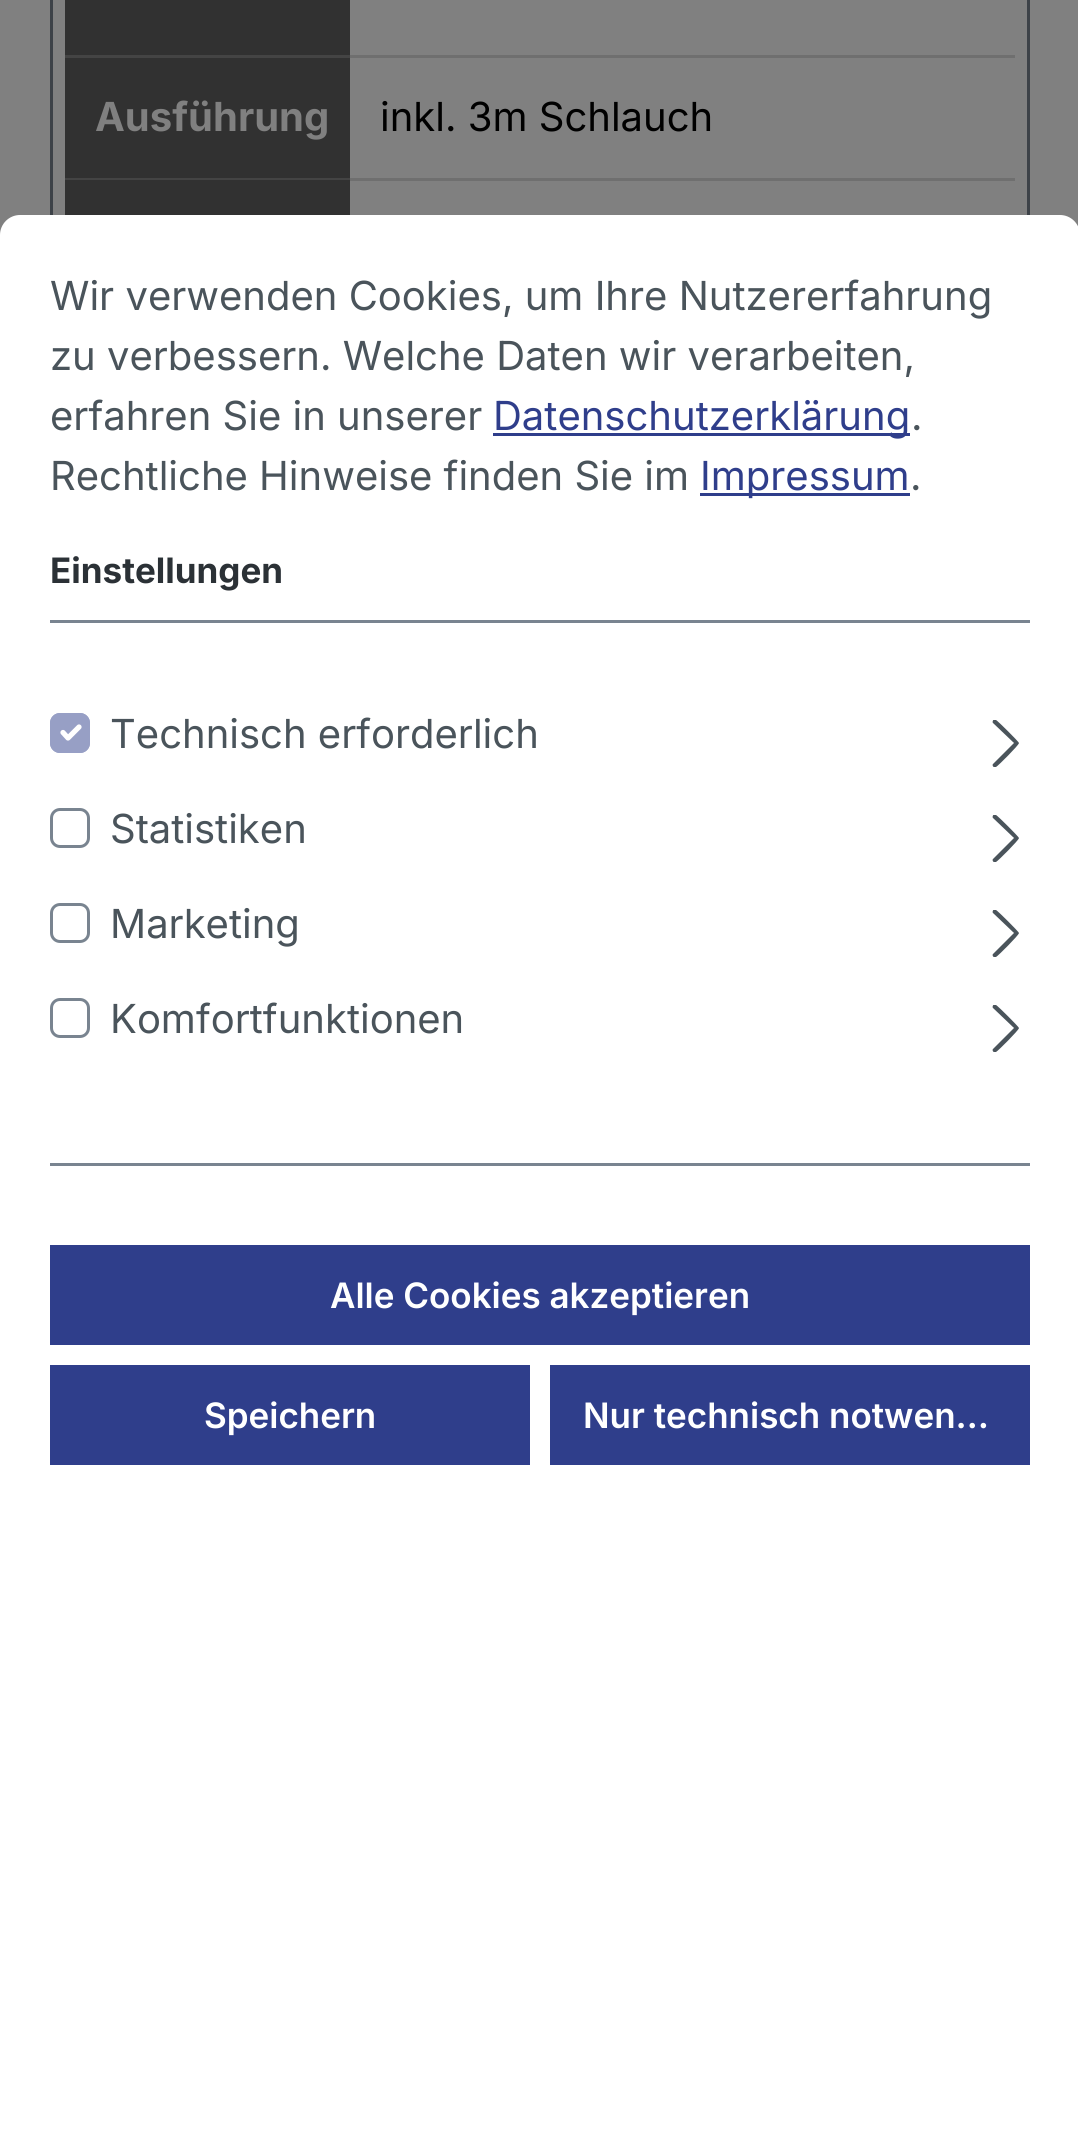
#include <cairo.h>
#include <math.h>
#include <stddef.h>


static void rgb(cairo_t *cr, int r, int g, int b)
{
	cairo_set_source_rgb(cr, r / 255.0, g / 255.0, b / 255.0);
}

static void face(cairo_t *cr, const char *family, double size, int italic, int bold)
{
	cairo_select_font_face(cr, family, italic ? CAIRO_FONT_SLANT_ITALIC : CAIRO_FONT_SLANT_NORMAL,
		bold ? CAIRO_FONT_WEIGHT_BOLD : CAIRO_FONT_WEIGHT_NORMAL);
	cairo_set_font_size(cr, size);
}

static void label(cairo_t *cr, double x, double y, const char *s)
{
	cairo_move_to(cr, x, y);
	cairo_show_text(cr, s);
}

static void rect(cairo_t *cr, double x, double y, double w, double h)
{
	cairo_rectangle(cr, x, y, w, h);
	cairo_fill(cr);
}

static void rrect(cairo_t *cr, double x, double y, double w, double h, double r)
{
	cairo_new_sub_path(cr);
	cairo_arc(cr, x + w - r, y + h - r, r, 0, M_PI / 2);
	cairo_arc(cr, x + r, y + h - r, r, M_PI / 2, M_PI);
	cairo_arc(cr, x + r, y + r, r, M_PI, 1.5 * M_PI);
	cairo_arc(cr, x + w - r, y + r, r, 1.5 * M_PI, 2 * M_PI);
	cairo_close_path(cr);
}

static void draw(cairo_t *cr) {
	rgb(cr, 128, 128, 128);
	cairo_paint(cr);
	cairo_rectangle(cr, 51.5, -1.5, 977, 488);
	rgb(cr, 61, 66, 72);
	cairo_set_line_width(cr, 3);
	cairo_stroke(cr);
	rgb(cr, 49, 49, 49);
	rect(cr, 65, 0, 285, 55);
	rgb(cr, 68, 68, 68);
	rect(cr, 65, 55, 285, 3);
	rgb(cr, 111, 111, 111);
	rect(cr, 350, 55, 665, 3);
	rgb(cr, 49, 49, 49);
	rect(cr, 65, 58, 285, 120);
	rgb(cr, 68, 68, 68);
	rect(cr, 65, 178, 285, 2);
	face(cr, "Inter", 40, 0, 1);
	rgb(cr, 128, 128, 128);
	label(cr, 95, 131, "Ausführung");
	rgb(cr, 111, 111, 111);
	rect(cr, 350, 178, 665, 3);
	face(cr, "Inter", 40, 0, 0);
	rgb(cr, 0, 0, 0);
	label(cr, 380, 131, "inkl. 3m Schlauch");
	rgb(cr, 49, 49, 49);
	rect(cr, 65, 180, 285, 35);
	rgb(cr, 255, 255, 255);
	cairo_new_path(cr);
	cairo_move_to(cr, 20, 215);
	cairo_line_to(cr, 1060, 215);
	cairo_curve_to(cr, 1071, 215, 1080, 224, 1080, 235);
	cairo_line_to(cr, 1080, 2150);
	cairo_line_to(cr, 0, 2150);
	cairo_line_to(cr, 0, 235);
	cairo_curve_to(cr, 0, 224, 9, 215, 20, 215);
	cairo_close_path(cr);
	cairo_fill(cr);
	rgb(cr, 121, 132, 144);
	rect(cr, 50, 620, 980, 3);
	rgb(cr, 74, 84, 91);
	label(cr, 50, 310, "Wir verwenden Cookies, um Ihre Nutzererfahrung");
	label(cr, 50, 370, "zu verbessern. Welche Daten wir verarbeiten,");
	label(cr, 50, 430, "erfahren Sie in unserer");
	rgb(cr, 47, 62, 139);
	rect(cr, 493, 433, 417, 3);
	label(cr, 493, 430, "Datenschutzerklärung");
	rgb(cr, 74, 84, 91);
	label(cr, 911, 430, ".");
	label(cr, 50, 490, "Rechtliche Hinweise finden Sie im");
	rgb(cr, 47, 62, 139);
	rect(cr, 700, 493, 210, 3);
	label(cr, 700, 490, "Impressum");
	rgb(cr, 74, 84, 91);
	label(cr, 910, 490, ".");
	face(cr, "Inter", 35, 0, 1);
	rgb(cr, 43, 49, 54);
	label(cr, 50, 583, "Einstellungen");
	rgb(cr, 121, 132, 144);
	rect(cr, 50, 1163, 980, 3);
	rgb(cr, 151, 159, 197);
	rrect(cr, 50, 713, 40, 40, 10);
	cairo_fill(cr);
	cairo_new_path(cr);
	cairo_move_to(cr, 63, 732.5);
	cairo_line_to(cr, 68, 738);
	cairo_line_to(cr, 79, 727);
	rgb(cr, 255, 255, 255);
	cairo_set_line_width(cr, 5.2);
	cairo_set_line_cap(cr, CAIRO_LINE_CAP_ROUND);
	cairo_set_line_join(cr, CAIRO_LINE_JOIN_ROUND);
	cairo_stroke(cr);
	rrect(cr, 51.5, 714.5, 37, 37, 8.5);
	rgb(cr, 151, 159, 197);
	cairo_set_line_width(cr, 3);
	cairo_set_line_cap(cr, CAIRO_LINE_CAP_BUTT);
	cairo_set_line_join(cr, CAIRO_LINE_JOIN_MITER);
	cairo_stroke(cr);
	face(cr, "Inter", 40, 0, 0);
	rgb(cr, 74, 84, 91);
	label(cr, 110, 748, "Technisch erforderlich");
	cairo_save(cr);
	cairo_rectangle(cr, 983, 720, 47, 48);
	cairo_clip(cr);
	cairo_set_fill_rule(cr, CAIRO_FILL_RULE_EVEN_ODD);
	cairo_new_path(cr);
	cairo_move_to(cr, 1014, 743);
	cairo_line_to(cr, 993, 764);
	cairo_curve_to(cr, 992, 765, 993, 767, 994, 767);
	cairo_line_to(cr, 996, 767);
	cairo_curve_to(cr, 998, 766, 1019, 745, 1019, 743);
	cairo_curve_to(cr, 1019, 742, 998, 721, 996, 720);
	cairo_line_to(cr, 994, 719);
	cairo_curve_to(cr, 993, 720, 992, 722, 993, 723);
	cairo_close_path(cr);
	cairo_fill(cr);
	cairo_restore(cr);
	rrect(cr, 51.5, 809.5, 37, 37, 8.5);
	rgb(cr, 121, 132, 144);
	cairo_stroke(cr);
	rgb(cr, 74, 84, 91);
	label(cr, 110, 843, "Statistiken");
	cairo_save(cr);
	cairo_rectangle(cr, 983, 815, 47, 48);
	cairo_clip(cr);
	cairo_set_fill_rule(cr, CAIRO_FILL_RULE_EVEN_ODD);
	cairo_new_path(cr);
	cairo_move_to(cr, 1014, 838);
	cairo_line_to(cr, 993, 859);
	cairo_curve_to(cr, 992, 860, 993, 862, 994, 862);
	cairo_line_to(cr, 996, 862);
	cairo_curve_to(cr, 998, 861, 1019, 840, 1019, 838);
	cairo_curve_to(cr, 1019, 837, 998, 816, 996, 815);
	cairo_line_to(cr, 994, 814);
	cairo_curve_to(cr, 993, 815, 992, 817, 993, 818);
	cairo_close_path(cr);
	cairo_fill(cr);
	cairo_restore(cr);
	rrect(cr, 51.5, 904.5, 37, 37, 8.5);
	rgb(cr, 121, 132, 144);
	cairo_stroke(cr);
	rgb(cr, 74, 84, 91);
	label(cr, 110, 938, "Marketing");
	cairo_save(cr);
	cairo_rectangle(cr, 983, 910, 47, 48);
	cairo_clip(cr);
	cairo_set_fill_rule(cr, CAIRO_FILL_RULE_EVEN_ODD);
	cairo_new_path(cr);
	cairo_move_to(cr, 1014, 933);
	cairo_line_to(cr, 993, 954);
	cairo_curve_to(cr, 992, 955, 993, 957, 994, 957);
	cairo_line_to(cr, 996, 957);
	cairo_curve_to(cr, 998, 956, 1019, 935, 1019, 933);
	cairo_curve_to(cr, 1019, 932, 998, 911, 996, 910);
	cairo_line_to(cr, 994, 909);
	cairo_curve_to(cr, 993, 910, 992, 912, 993, 913);
	cairo_close_path(cr);
	cairo_fill(cr);
	cairo_restore(cr);
	rrect(cr, 51.5, 999.5, 37, 37, 8.5);
	rgb(cr, 121, 132, 144);
	cairo_stroke(cr);
	rgb(cr, 74, 84, 91);
	label(cr, 110, 1033, "Komfortfunktionen");
	cairo_save(cr);
	cairo_rectangle(cr, 983, 1005, 47, 48);
	cairo_clip(cr);
	cairo_set_fill_rule(cr, CAIRO_FILL_RULE_EVEN_ODD);
	cairo_new_path(cr);
	cairo_move_to(cr, 1014, 1028);
	cairo_line_to(cr, 993, 1049);
	cairo_curve_to(cr, 992, 1050, 993, 1052, 994, 1052);
	cairo_line_to(cr, 996, 1052);
	cairo_curve_to(cr, 998, 1051, 1019, 1030, 1019, 1028);
	cairo_curve_to(cr, 1019, 1027, 998, 1006, 996, 1005);
	cairo_line_to(cr, 994, 1004);
	cairo_curve_to(cr, 993, 1005, 992, 1007, 993, 1008);
	cairo_close_path(cr);
	cairo_fill(cr);
	cairo_restore(cr);
	rgb(cr, 47, 62, 139);
	rect(cr, 50, 1245, 980, 100);
	face(cr, "Inter SemiBold", 35, 0, 0);
	rgb(cr, 255, 255, 255);
	label(cr, 330, 1308, "Alle Cookies akzeptieren");
	rgb(cr, 47, 62, 139);
	rect(cr, 50, 1365, 480, 100);
	rgb(cr, 255, 255, 255);
	label(cr, 204, 1428, "Speichern");
	rgb(cr, 47, 62, 139);
	rect(cr, 550, 1365, 480, 100);
	rgb(cr, 255, 255, 255);
	label(cr, 583, 1428, "Nur technisch notwen…");
}

int main(void) {
	cairo_surface_t *surface = cairo_image_surface_create(CAIRO_FORMAT_RGB24, 1078, 2148);
	cairo_t *cr = cairo_create(surface);
	cairo_font_options_t *options = cairo_font_options_create();
	cairo_font_options_set_hint_metrics(options, CAIRO_HINT_METRICS_OFF);
	cairo_font_options_set_hint_style(options, CAIRO_HINT_STYLE_NONE);
	cairo_set_font_options(cr, options);
	cairo_set_miter_limit(cr, 4);
	draw(cr);
	cairo_surface_write_to_png(surface, "render.png");
	cairo_font_options_destroy(options);
	cairo_destroy(cr);
	cairo_surface_destroy(surface);
	return 0;
}
